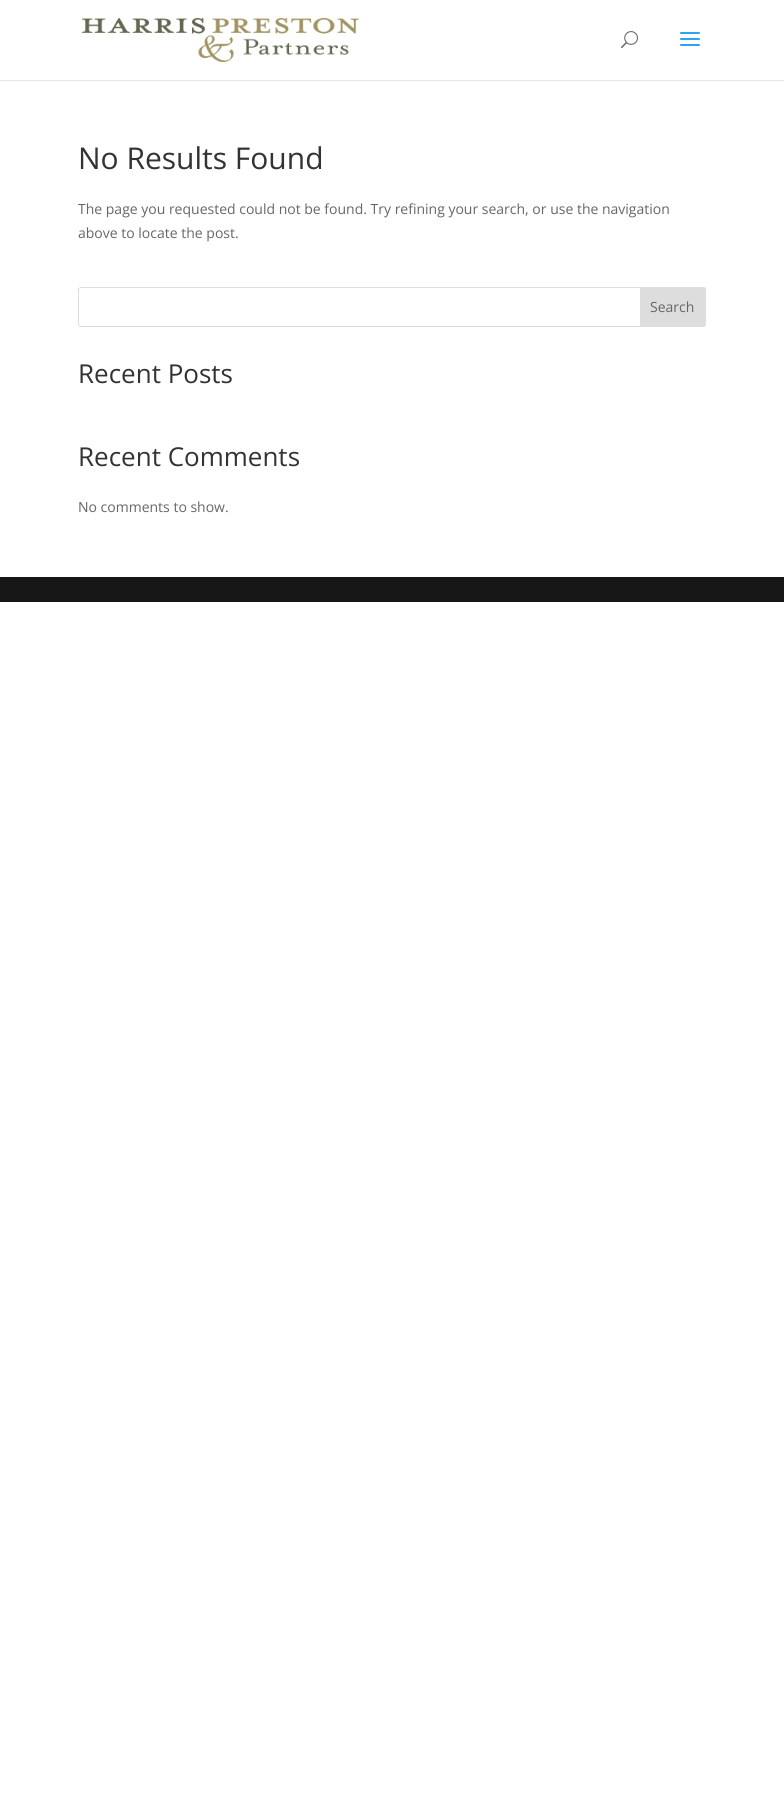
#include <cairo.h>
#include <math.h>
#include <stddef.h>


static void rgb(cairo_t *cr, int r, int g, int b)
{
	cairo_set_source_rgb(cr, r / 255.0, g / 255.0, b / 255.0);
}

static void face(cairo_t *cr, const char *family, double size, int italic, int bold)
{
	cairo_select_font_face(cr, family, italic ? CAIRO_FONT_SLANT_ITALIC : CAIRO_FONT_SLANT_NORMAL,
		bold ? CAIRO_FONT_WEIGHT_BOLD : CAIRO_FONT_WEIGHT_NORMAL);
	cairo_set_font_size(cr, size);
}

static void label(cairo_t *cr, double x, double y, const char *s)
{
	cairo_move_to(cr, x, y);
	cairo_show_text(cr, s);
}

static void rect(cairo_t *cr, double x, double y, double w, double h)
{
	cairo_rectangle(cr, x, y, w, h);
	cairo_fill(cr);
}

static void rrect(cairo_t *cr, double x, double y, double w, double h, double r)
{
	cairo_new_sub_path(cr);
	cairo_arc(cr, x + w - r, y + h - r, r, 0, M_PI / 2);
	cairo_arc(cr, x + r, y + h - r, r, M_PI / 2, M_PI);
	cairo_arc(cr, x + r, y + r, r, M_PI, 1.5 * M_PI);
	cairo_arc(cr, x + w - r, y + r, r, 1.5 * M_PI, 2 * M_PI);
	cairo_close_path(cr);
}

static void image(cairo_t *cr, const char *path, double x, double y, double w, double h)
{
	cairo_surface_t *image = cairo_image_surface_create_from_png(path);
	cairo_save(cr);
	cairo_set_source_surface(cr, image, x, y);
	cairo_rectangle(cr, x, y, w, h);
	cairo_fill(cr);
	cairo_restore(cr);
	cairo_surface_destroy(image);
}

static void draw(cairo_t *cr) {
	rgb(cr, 255, 255, 255);
	cairo_paint(cr);
	rgb(cr, 230, 230, 230);
	rect(cr, 0, 80, 784, 1);
	image(cr, "image0.png", 82, 18, 277, 44);
	image(cr, "image1.png", 621, 31, 17, 18);
	image(cr, "image2.png", 680, 32, 20, 14);
	face(cr, "Open Sans", 30, 0, 0);
	rgb(cr, 51, 51, 51);
	label(cr, 78, 169, "No Results Found");
	face(cr, "Open Sans", 14, 0, 0);
	rgb(cr, 102, 102, 102);
	label(cr, 78, 214, "The page you requested could not be found. Try refining your search, or use the navigation");
	label(cr, 78, 238, "above to locate the post.");
	rrect(cr, 78.5, 287.5, 627, 39, 2.5);
	rgb(cr, 221, 221, 221);
	cairo_set_line_width(cr, 1);
	cairo_stroke(cr);
	cairo_new_path(cr);
	cairo_move_to(cr, 640.5, 287.5);
	cairo_line_to(cr, 703, 287.5);
	cairo_curve_to(cr, 704.5, 287.5, 705.5, 288.5, 705.5, 290);
	cairo_line_to(cr, 705.5, 324);
	cairo_curve_to(cr, 705.5, 325.5, 704.5, 326.5, 703, 326.5);
	cairo_line_to(cr, 640.5, 326.5);
	cairo_close_path(cr);
	cairo_fill_preserve(cr);
	cairo_stroke(cr);
	rgb(cr, 102, 102, 102);
	label(cr, 650, 312, "Search");
	face(cr, "Open Sans", 26, 0, 0);
	rgb(cr, 51, 51, 51);
	label(cr, 78, 383, "Recent Posts");
	label(cr, 78, 466, "Recent Comments");
	face(cr, "Open Sans", 14, 0, 0);
	rgb(cr, 102, 102, 102);
	label(cr, 78, 512, "No comments to show.");
	rgb(cr, 23, 23, 23);
	rect(cr, 0, 577, 784, 25);
}

int main(void) {
	cairo_surface_t *surface = cairo_image_surface_create(CAIRO_FORMAT_RGB24, 784, 1795);
	cairo_t *cr = cairo_create(surface);
	cairo_font_options_t *options = cairo_font_options_create();
	cairo_font_options_set_hint_metrics(options, CAIRO_HINT_METRICS_OFF);
	cairo_font_options_set_hint_style(options, CAIRO_HINT_STYLE_NONE);
	cairo_set_font_options(cr, options);
	cairo_set_miter_limit(cr, 4);
	draw(cr);
	cairo_surface_write_to_png(surface, "render.png");
	cairo_font_options_destroy(options);
	cairo_destroy(cr);
	cairo_surface_destroy(surface);
	return 0;
}
